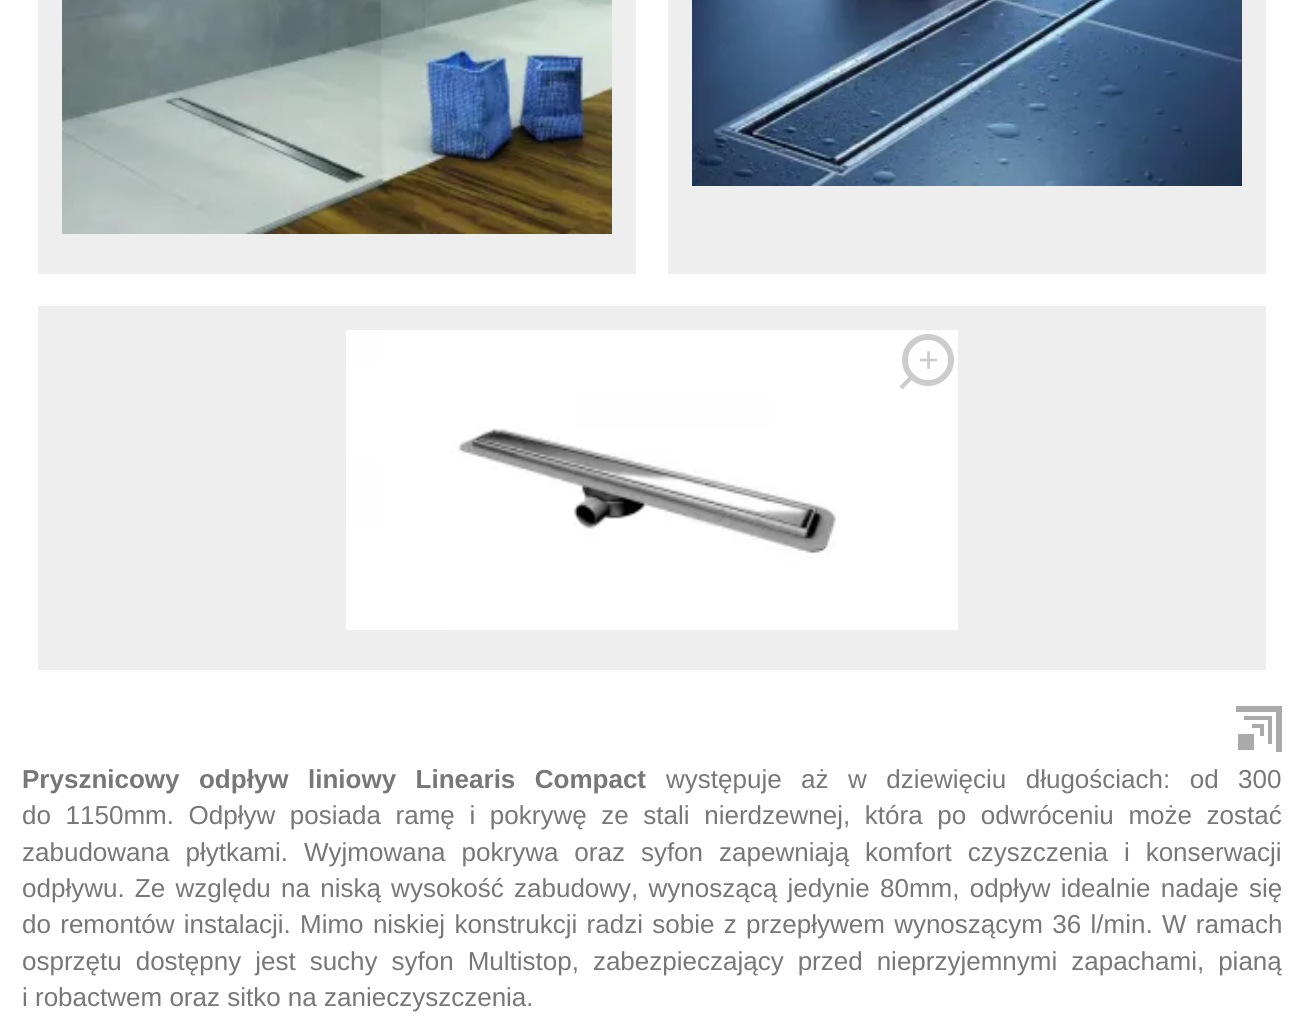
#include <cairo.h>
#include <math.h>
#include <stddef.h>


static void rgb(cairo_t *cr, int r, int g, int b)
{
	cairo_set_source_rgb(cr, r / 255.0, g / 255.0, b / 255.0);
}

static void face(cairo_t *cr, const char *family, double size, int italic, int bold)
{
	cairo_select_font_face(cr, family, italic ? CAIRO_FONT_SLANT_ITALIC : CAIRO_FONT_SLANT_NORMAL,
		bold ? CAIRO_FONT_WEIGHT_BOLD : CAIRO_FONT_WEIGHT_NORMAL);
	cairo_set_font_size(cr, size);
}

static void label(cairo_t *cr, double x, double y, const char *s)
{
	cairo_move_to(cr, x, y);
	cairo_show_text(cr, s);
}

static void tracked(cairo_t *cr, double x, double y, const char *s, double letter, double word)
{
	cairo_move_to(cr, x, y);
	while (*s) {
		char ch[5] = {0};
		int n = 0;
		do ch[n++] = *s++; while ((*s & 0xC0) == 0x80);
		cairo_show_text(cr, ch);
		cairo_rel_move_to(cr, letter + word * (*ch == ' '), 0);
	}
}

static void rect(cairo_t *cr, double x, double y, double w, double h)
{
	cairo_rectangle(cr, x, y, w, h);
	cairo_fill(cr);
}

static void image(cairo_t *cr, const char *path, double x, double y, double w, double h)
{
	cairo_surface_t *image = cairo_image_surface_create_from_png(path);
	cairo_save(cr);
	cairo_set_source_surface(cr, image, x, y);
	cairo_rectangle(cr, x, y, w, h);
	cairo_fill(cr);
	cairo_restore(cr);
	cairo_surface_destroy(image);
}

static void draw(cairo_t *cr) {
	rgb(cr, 255, 255, 255);
	cairo_paint(cr);
	rgb(cr, 238, 238, 238);
	rect(cr, 38, 0, 598, 274);
	image(cr, "image0.png", 62, 0, 550, 234);
	rect(cr, 668, 0, 598, 274);
	image(cr, "image1.png", 692, 0, 550, 186);
	rect(cr, 38, 306, 1228, 364);
	image(cr, "image2.png", 346, 330, 612, 300);
	cairo_arc(cr, 928, 360, 23, 0, 2 * M_PI);
	rgb(cr, 204, 204, 204);
	cairo_set_line_width(cr, 6);
	cairo_stroke(cr);
	face(cr, "Liberation Sans", 36, 0, 0);
	label(cr, 918, 372, "+");
	cairo_new_path(cr);
	cairo_move_to(cr, 899.5, 386.5);
	cairo_line_to(cr, 910.5, 375);
	cairo_line_to(cr, 913.5, 378);
	cairo_line_to(cr, 902.5, 389.5);
	cairo_close_path(cr);
	cairo_fill(cr);
	rgb(cr, 170, 170, 170);
	rect(cr, 1236, 706, 46, 6);
	rect(cr, 1276, 706, 6, 46);
	rect(cr, 1244, 716, 28, 4);
	rect(cr, 1268, 716, 4, 28);
	rect(cr, 1252, 724, 12, 4);
	rect(cr, 1260, 724, 4, 12);
	rect(cr, 1238, 734, 16, 16);
	face(cr, "Liberation Sans", 26, 0, 1);
	rgb(cr, 119, 119, 119);
	tracked(cr, 22, 788, "Prysznicowy odpływ liniowy Linearis Compact", 0, 12.25);
	face(cr, "Liberation Sans", 26, 0, 0);
	tracked(cr, 666, 788, "występuje aż w dziewięciu długościach: od 300", 0, 12.25);
	tracked(cr, 22, 824, "do 1150mm. Odpływ posiada ramę i pokrywę ze stali nierdzewnej, która po odwróceniu może zostać", 0, 7.4);
	tracked(cr, 22, 861, "zabudowana płytkami. Wyjmowana pokrywa oraz syfon zapewniają komfort czyszczenia i konserwacji", 0, 8.75);
	tracked(cr, 22, 897, "odpływu. Ze względu na niską wysokość zabudowy, wynoszącą jedynie 80mm, odpływ idealnie nadaje się", 0, 3);
	tracked(cr, 22, 933, "do remontów instalacji.", 0, 2.1);
	tracked(cr, 300, 933, "Mimo niskiej konstrukcji radzi sobie z przepływem wynoszącym 36 l/min. W ramach", 0, 2.1);
	tracked(cr, 22, 970, "osprzętu dostępny jest suchy syfon Multistop, zabezpieczający przed nieprzyjemnymi zapachami, pianą", 0, 6.75);
	label(cr, 22, 1006, "i robactwem oraz sitko na zanieczyszczenia.");
}

int main(void) {
	cairo_surface_t *surface = cairo_image_surface_create(CAIRO_FORMAT_RGB24, 1302, 1031);
	cairo_t *cr = cairo_create(surface);
	cairo_font_options_t *options = cairo_font_options_create();
	cairo_font_options_set_hint_metrics(options, CAIRO_HINT_METRICS_OFF);
	cairo_font_options_set_hint_style(options, CAIRO_HINT_STYLE_NONE);
	cairo_set_font_options(cr, options);
	cairo_set_miter_limit(cr, 4);
	draw(cr);
	cairo_surface_write_to_png(surface, "render.png");
	cairo_font_options_destroy(options);
	cairo_destroy(cr);
	cairo_surface_destroy(surface);
	return 0;
}
